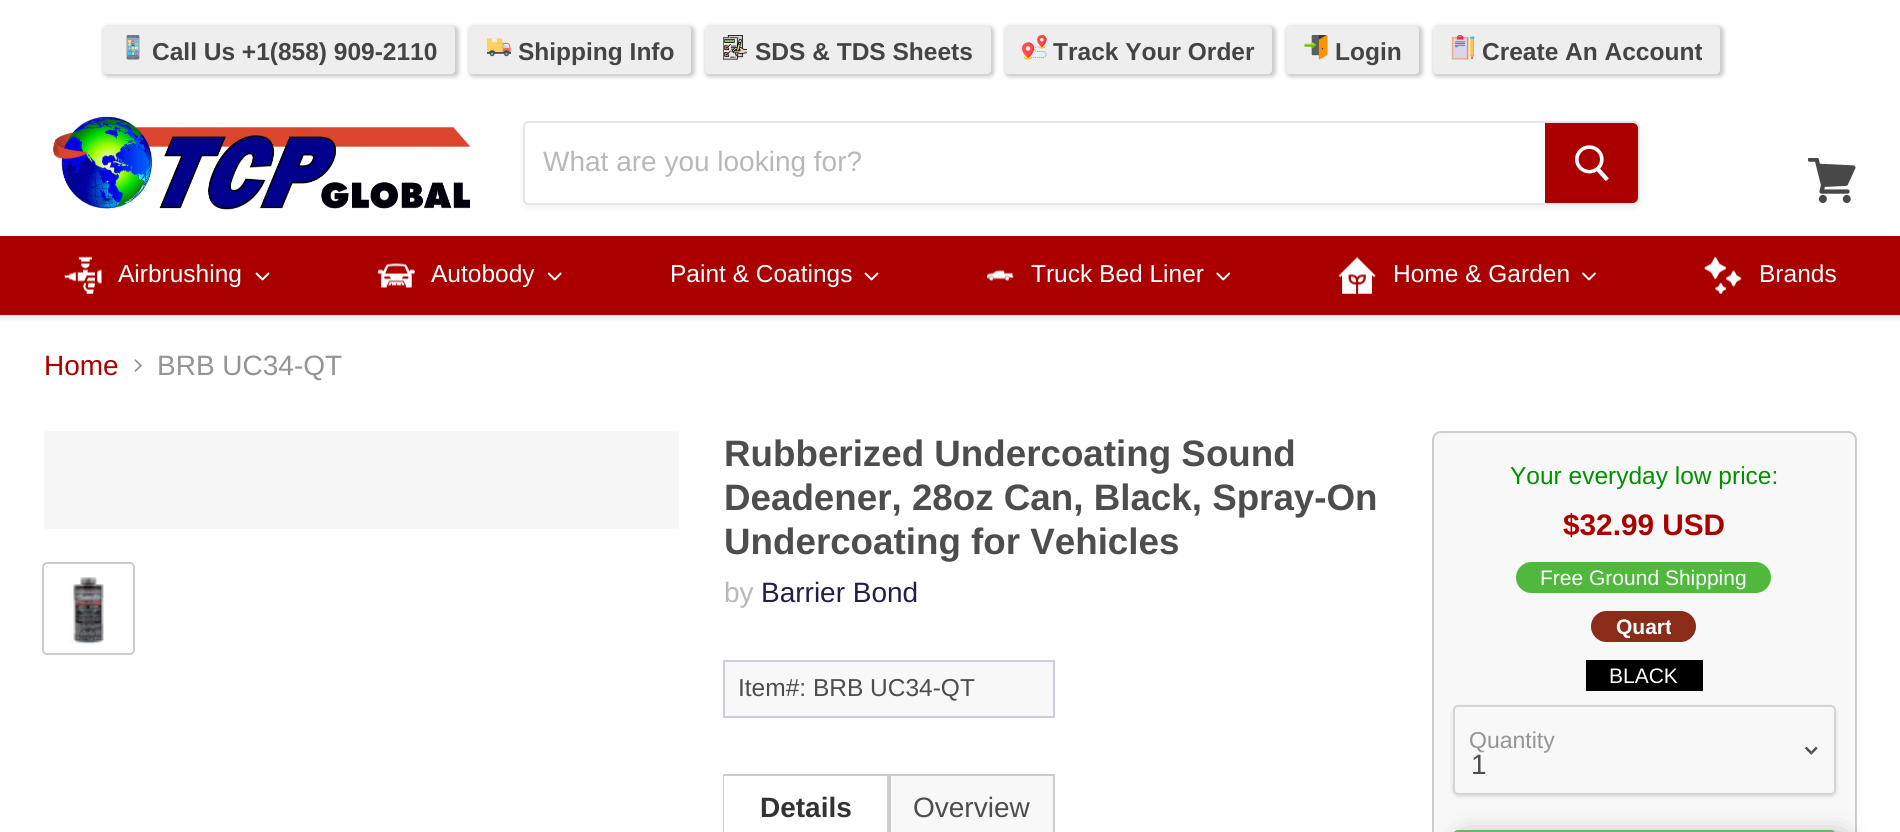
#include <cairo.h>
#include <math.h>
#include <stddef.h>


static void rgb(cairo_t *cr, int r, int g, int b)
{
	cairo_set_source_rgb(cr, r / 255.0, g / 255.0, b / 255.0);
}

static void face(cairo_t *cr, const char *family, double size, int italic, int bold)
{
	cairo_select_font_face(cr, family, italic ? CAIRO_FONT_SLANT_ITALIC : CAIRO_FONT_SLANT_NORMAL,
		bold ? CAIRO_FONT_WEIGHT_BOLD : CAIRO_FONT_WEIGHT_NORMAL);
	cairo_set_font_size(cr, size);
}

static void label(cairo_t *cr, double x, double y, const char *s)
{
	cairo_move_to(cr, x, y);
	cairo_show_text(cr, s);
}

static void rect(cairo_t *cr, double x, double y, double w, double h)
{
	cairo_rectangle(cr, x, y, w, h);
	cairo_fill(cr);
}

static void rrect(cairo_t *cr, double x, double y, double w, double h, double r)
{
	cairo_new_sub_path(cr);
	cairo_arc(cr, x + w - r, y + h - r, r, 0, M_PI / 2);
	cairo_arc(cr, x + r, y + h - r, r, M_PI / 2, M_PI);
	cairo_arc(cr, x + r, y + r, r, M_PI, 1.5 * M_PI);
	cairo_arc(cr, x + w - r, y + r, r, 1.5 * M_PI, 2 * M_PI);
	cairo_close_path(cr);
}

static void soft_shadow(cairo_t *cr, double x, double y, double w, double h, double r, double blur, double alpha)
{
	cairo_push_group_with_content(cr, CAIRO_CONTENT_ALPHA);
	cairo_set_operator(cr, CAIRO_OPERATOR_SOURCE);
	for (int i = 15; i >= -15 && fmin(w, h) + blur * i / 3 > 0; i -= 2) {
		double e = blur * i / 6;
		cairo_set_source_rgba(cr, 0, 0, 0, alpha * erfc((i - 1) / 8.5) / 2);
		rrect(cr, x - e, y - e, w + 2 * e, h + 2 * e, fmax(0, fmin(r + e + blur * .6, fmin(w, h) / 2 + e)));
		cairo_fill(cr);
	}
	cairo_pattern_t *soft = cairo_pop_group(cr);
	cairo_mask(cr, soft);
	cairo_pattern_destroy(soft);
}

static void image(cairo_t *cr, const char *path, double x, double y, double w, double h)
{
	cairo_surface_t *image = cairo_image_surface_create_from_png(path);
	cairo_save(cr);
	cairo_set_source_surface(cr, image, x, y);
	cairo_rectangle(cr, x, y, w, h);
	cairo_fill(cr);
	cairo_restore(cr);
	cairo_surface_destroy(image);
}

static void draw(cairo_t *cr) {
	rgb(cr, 255, 255, 255);
	cairo_paint(cr);
	cairo_save(cr);
	cairo_rectangle(cr, 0, 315, 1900, 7);
	cairo_clip(cr);
	rgb(cr, 127, 127, 127);
	soft_shadow(cr, 0, 2, 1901, 315, 0, 3.5, 0.25);
	cairo_restore(cr);
	rgb(cr, 204, 204, 204);
	soft_shadow(cr, 103, 26, 356, 51, 5, 2, 1);
	rgb(cr, 238, 238, 238);
	rrect(cr, 103, 26, 352, 48, 4);
	cairo_fill(cr);
	image(cr, "image0.png", 126, 35, 14, 25);
	face(cr, "Liberation Sans", 24.5, 0, 1);
	rgb(cr, 68, 68, 68);
	label(cr, 152, 60, "Call Us +1(858) 909-2110");
	rgb(cr, 204, 204, 204);
	soft_shadow(cr, 469, 26, 226, 51, 5, 2, 1);
	rgb(cr, 238, 238, 238);
	rrect(cr, 469, 26, 222, 48, 4);
	cairo_fill(cr);
	image(cr, "image1.png", 487, 38, 24, 19);
	rgb(cr, 68, 68, 68);
	label(cr, 518, 60, "Shipping Info");
	rgb(cr, 204, 204, 204);
	soft_shadow(cr, 705, 26, 289, 51, 5, 2, 1);
	rgb(cr, 238, 238, 238);
	rrect(cr, 705, 26, 286, 48, 4);
	cairo_fill(cr);
	image(cr, "image2.png", 723, 35, 24, 25);
	rgb(cr, 68, 68, 68);
	label(cr, 755, 60, "SDS & TDS Sheets");
	rgb(cr, 204, 204, 204);
	soft_shadow(cr, 1005, 26, 271, 51, 5, 2, 1);
	rgb(cr, 238, 238, 238);
	rrect(cr, 1005, 26, 267, 48, 4);
	cairo_fill(cr);
	image(cr, "image3.png", 1022, 35, 25, 25);
	rgb(cr, 68, 68, 68);
	label(cr, 1053, 60, "Track Your Order");
	rgb(cr, 204, 204, 204);
	soft_shadow(cr, 1286, 26, 137, 51, 5, 2, 1);
	rgb(cr, 238, 238, 238);
	rrect(cr, 1286, 26, 133, 48, 4);
	cairo_fill(cr);
	image(cr, "image4.png", 1304, 35, 24, 25);
	rgb(cr, 68, 68, 68);
	label(cr, 1335, 60, "Login");
	rgb(cr, 204, 204, 204);
	soft_shadow(cr, 1433, 26, 291, 51, 5, 2, 1);
	rgb(cr, 238, 238, 238);
	rrect(cr, 1433, 26, 287, 48, 4);
	cairo_fill(cr);
	image(cr, "image5.png", 1451, 35, 24, 25);
	rgb(cr, 68, 68, 68);
	label(cr, 1482, 60, "Create An Account");
	image(cr, "image6.png", 53, 116, 417, 94);
	cairo_save(cr);
	cairo_set_fill_rule(cr, CAIRO_FILL_RULE_EVEN_ODD);
	cairo_new_path(cr);
	cairo_move_to(cr, 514, 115);
	cairo_line_to(cr, 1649, 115);
	cairo_line_to(cr, 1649, 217);
	cairo_line_to(cr, 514, 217);
	cairo_close_path(cr);
	cairo_move_to(cr, 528, 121);
	cairo_line_to(cr, 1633, 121);
	cairo_curve_to(cr, 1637, 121, 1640, 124, 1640, 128);
	cairo_line_to(cr, 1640, 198);
	cairo_curve_to(cr, 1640, 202, 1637, 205, 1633, 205);
	cairo_line_to(cr, 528, 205);
	cairo_curve_to(cr, 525, 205, 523, 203, 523, 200);
	cairo_line_to(cr, 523, 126);
	cairo_curve_to(cr, 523, 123, 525, 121, 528, 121);
	cairo_close_path(cr);
	cairo_clip(cr);
	rgb(cr, 127, 127, 127);
	soft_shadow(cr, 523, 124, 1117, 84, 7, 2.5, 0.11);
	cairo_restore(cr);
	cairo_new_path(cr);
	cairo_move_to(cr, 528, 122);
	cairo_line_to(cr, 1633, 122);
	cairo_curve_to(cr, 1636.5, 122, 1639, 124.5, 1639, 128);
	cairo_line_to(cr, 1639, 198);
	cairo_curve_to(cr, 1639, 201.5, 1636.5, 204, 1633, 204);
	cairo_line_to(cr, 528, 204);
	cairo_curve_to(cr, 526, 204, 524, 202, 524, 200);
	cairo_line_to(cr, 524, 126);
	cairo_curve_to(cr, 524, 124, 526, 122, 528, 122);
	cairo_close_path(cr);
	cairo_set_source_rgba(cr, 0.498, 0.498, 0.498, 0.2);
	cairo_stroke(cr);
	face(cr, "Liberation Sans", 28, 0, 0);
	rgb(cr, 184, 184, 184);
	label(cr, 543, 171, "What are you looking for?");
	rgb(cr, 170, 0, 0);
	cairo_new_path(cr);
	cairo_move_to(cr, 1546, 124);
	cairo_line_to(cr, 1633, 124);
	cairo_curve_to(cr, 1635, 124, 1637, 126, 1637, 128);
	cairo_line_to(cr, 1637, 198);
	cairo_curve_to(cr, 1637, 200, 1635, 202, 1633, 202);
	cairo_line_to(cr, 1546, 202);
	cairo_close_path(cr);
	cairo_fill_preserve(cr);
	cairo_stroke(cr);
	image(cr, "image7.png", 1575, 145, 34, 37);
	image(cr, "image8.png", 1808, 158, 48, 45);
	rect(cr, 0, 236, 1900, 70);
	image(cr, "image9.png", 64, 256, 38, 38);
	face(cr, "Liberation Sans", 24.5, 0, 0);
	rgb(cr, 255, 255, 255);
	label(cr, 118, 282, "Airbrushing");
	image(cr, "image10.png", 255, 272, 15, 9);
	image(cr, "image11.png", 378, 263, 37, 25);
	label(cr, 431, 282, "Autobody");
	image(cr, "image12.png", 547, 272, 15, 9);
	label(cr, 670, 282, "Paint & Coatings");
	image(cr, "image10.png", 864, 272, 15, 9);
	image(cr, "image13.png", 987, 270, 27, 11);
	label(cr, 1031, 282, "Truck Bed Liner");
	image(cr, "image14.png", 1216, 272, 15, 9);
	image(cr, "image15.png", 1338, 256, 38, 38);
	label(cr, 1393, 282, "Home & Garden");
	image(cr, "image16.png", 1582, 272, 14, 9);
	image(cr, "image17.png", 1704, 256, 38, 38);
	label(cr, 1759, 282, "Brands");
	rgb(cr, 169, 0, 0);
	rect(cr, 0, 306, 1900, 9);
	face(cr, "Liberation Sans", 28, 0, 0);
	rgb(cr, 170, 0, 0);
	label(cr, 44, 375, "Home");
	image(cr, "image18.png", 134, 359, 8, 13);
	rgb(cr, 148, 148, 148);
	label(cr, 157, 375, "BRB UC34-QT");
	rgb(cr, 247, 247, 247);
	rect(cr, 44, 431, 635, 98);
	rrect(cr, 43, 563, 91, 91, 4);
	rgb(cr, 204, 204, 204);
	cairo_stroke(cr);
	image(cr, "image19.png", 69, 577, 35, 72);
	face(cr, "Liberation Sans", 36.75, 0, 1);
	rgb(cr, 77, 77, 77);
	label(cr, 724, 466, "Rubberized Undercoating Sound");
	label(cr, 724, 510, "Deadener, 28oz Can, Black, Spray-On");
	label(cr, 724, 554, "Undercoating for Vehicles");
	face(cr, "Liberation Sans", 28, 0, 0);
	rgb(cr, 184, 184, 184);
	label(cr, 724, 602, "by");
	rgb(cr, 31, 31, 73);
	label(cr, 761, 602, "Barrier Bond");
	rgb(cr, 248, 248, 248);
	cairo_rectangle(cr, 724, 661, 330, 56);
	cairo_fill_preserve(cr);
	rgb(cr, 204, 204, 221);
	cairo_stroke(cr);
	face(cr, "Liberation Sans", 24.5, 0, 0);
	rgb(cr, 77, 77, 77);
	label(cr, 738, 696, "Item#: BRB UC34-QT");
	rgb(cr, 204, 204, 204);
	rect(cr, 723, 774, 166, 2);
	cairo_new_path(cr);
	cairo_move_to(cr, 889, 774);
	cairo_line_to(cr, 889, 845);
	cairo_line_to(cr, 887, 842);
	cairo_line_to(cr, 887, 775);
	cairo_close_path(cr);
	cairo_fill(cr);
	cairo_new_path(cr);
	cairo_move_to(cr, 723, 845);
	cairo_line_to(cr, 723, 774);
	cairo_line_to(cr, 724, 775);
	cairo_line_to(cr, 724, 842);
	cairo_close_path(cr);
	cairo_fill(cr);
	face(cr, "Liberation Sans", 28, 0, 1);
	rgb(cr, 51, 51, 51);
	label(cr, 760, 817, "Details");
	rgb(cr, 248, 248, 248);
	cairo_rectangle(cr, 890, 775, 164, 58);
	cairo_fill_preserve(cr);
	rgb(cr, 204, 204, 204);
	cairo_stroke(cr);
	face(cr, "Liberation Sans", 28, 0, 0);
	rgb(cr, 77, 77, 77);
	label(cr, 913, 817, "Overview");
	rgb(cr, 248, 248, 248);
	rrect(cr, 1433, 432, 423, 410, 8);
	cairo_fill_preserve(cr);
	rgb(cr, 204, 204, 204);
	cairo_stroke(cr);
	face(cr, "Liberation Sans", 24.5, 0, 0);
	rgb(cr, 0, 144, 0);
	label(cr, 1510, 484, "Your everyday low price:");
	face(cr, "Liberation Sans", 29.75, 0, 1);
	rgb(cr, 170, 0, 0);
	label(cr, 1563, 535, "$32.99 USD");
	rgb(cr, 80, 184, 60);
	rrect(cr, 1516, 562, 255, 31, 15.5);
	cairo_fill(cr);
	face(cr, "Liberation Sans", 21, 0, 0);
	rgb(cr, 255, 255, 255);
	label(cr, 1540, 585, "Free Ground Shipping");
	rgb(cr, 139, 44, 25);
	rrect(cr, 1591, 611, 105, 31, 15.5);
	cairo_fill(cr);
	cairo_save(cr);
	cairo_rectangle(cr, 1615, 611, 56, 31);
	cairo_clip(cr);
	face(cr, "Liberation Sans", 21, 0, 1);
	rgb(cr, 255, 255, 255);
	label(cr, 1616, 634, "Quart");
	cairo_restore(cr);
	rgb(cr, 0, 0, 0);
	rect(cr, 1586, 660, 117, 31);
	rgb(cr, 255, 255, 255);
	label(cr, 1609, 683, "BLACK");
	cairo_save(cr);
	cairo_set_fill_rule(cr, CAIRO_FILL_RULE_EVEN_ODD);
	cairo_new_path(cr);
	cairo_move_to(cr, 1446, 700);
	cairo_line_to(cr, 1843, 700);
	cairo_line_to(cr, 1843, 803);
	cairo_line_to(cr, 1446, 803);
	cairo_close_path(cr);
	cairo_move_to(cr, 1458, 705);
	cairo_line_to(cr, 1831, 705);
	cairo_curve_to(cr, 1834, 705, 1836, 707, 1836, 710);
	cairo_line_to(cr, 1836, 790);
	cairo_curve_to(cr, 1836, 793, 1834, 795, 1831, 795);
	cairo_line_to(cr, 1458, 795);
	cairo_curve_to(cr, 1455, 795, 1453, 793, 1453, 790);
	cairo_line_to(cr, 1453, 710);
	cairo_curve_to(cr, 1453, 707, 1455, 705, 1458, 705);
	cairo_close_path(cr);
	cairo_clip(cr);
	rgb(cr, 0, 0, 0);
	soft_shadow(cr, 1453, 707, 383, 89, 5, 2, 0.15);
	cairo_restore(cr);
	rrect(cr, 1454, 706, 381, 88, 4);
	cairo_set_source_rgba(cr, 0.498, 0.498, 0.498, 0.3);
	cairo_stroke(cr);
	face(cr, "Liberation Sans", 23, 0, 0);
	rgb(cr, 148, 148, 148);
	label(cr, 1469, 748, "Quantity");
	image(cr, "image20.png", 1804, 746, 14, 9);
	face(cr, "Liberation Sans", 28, 0, 0);
	rgb(cr, 77, 77, 77);
	label(cr, 1471, 774, "1");
	rgb(cr, 136, 136, 136);
	soft_shadow(cr, 1463, 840, 380, 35, 4, 13, 1);
	rrect(cr, 1454, 831, 381, 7, 4);
	rgb(cr, 103, 185, 99);
	cairo_stroke(cr);
}

int main(void) {
	cairo_surface_t *surface = cairo_image_surface_create(CAIRO_FORMAT_RGB24, 1900, 832);
	cairo_t *cr = cairo_create(surface);
	cairo_font_options_t *options = cairo_font_options_create();
	cairo_font_options_set_hint_metrics(options, CAIRO_HINT_METRICS_OFF);
	cairo_font_options_set_hint_style(options, CAIRO_HINT_STYLE_NONE);
	cairo_set_font_options(cr, options);
	cairo_set_miter_limit(cr, 4);
	draw(cr);
	cairo_surface_write_to_png(surface, "render.png");
	cairo_font_options_destroy(options);
	cairo_destroy(cr);
	cairo_surface_destroy(surface);
	return 0;
}
